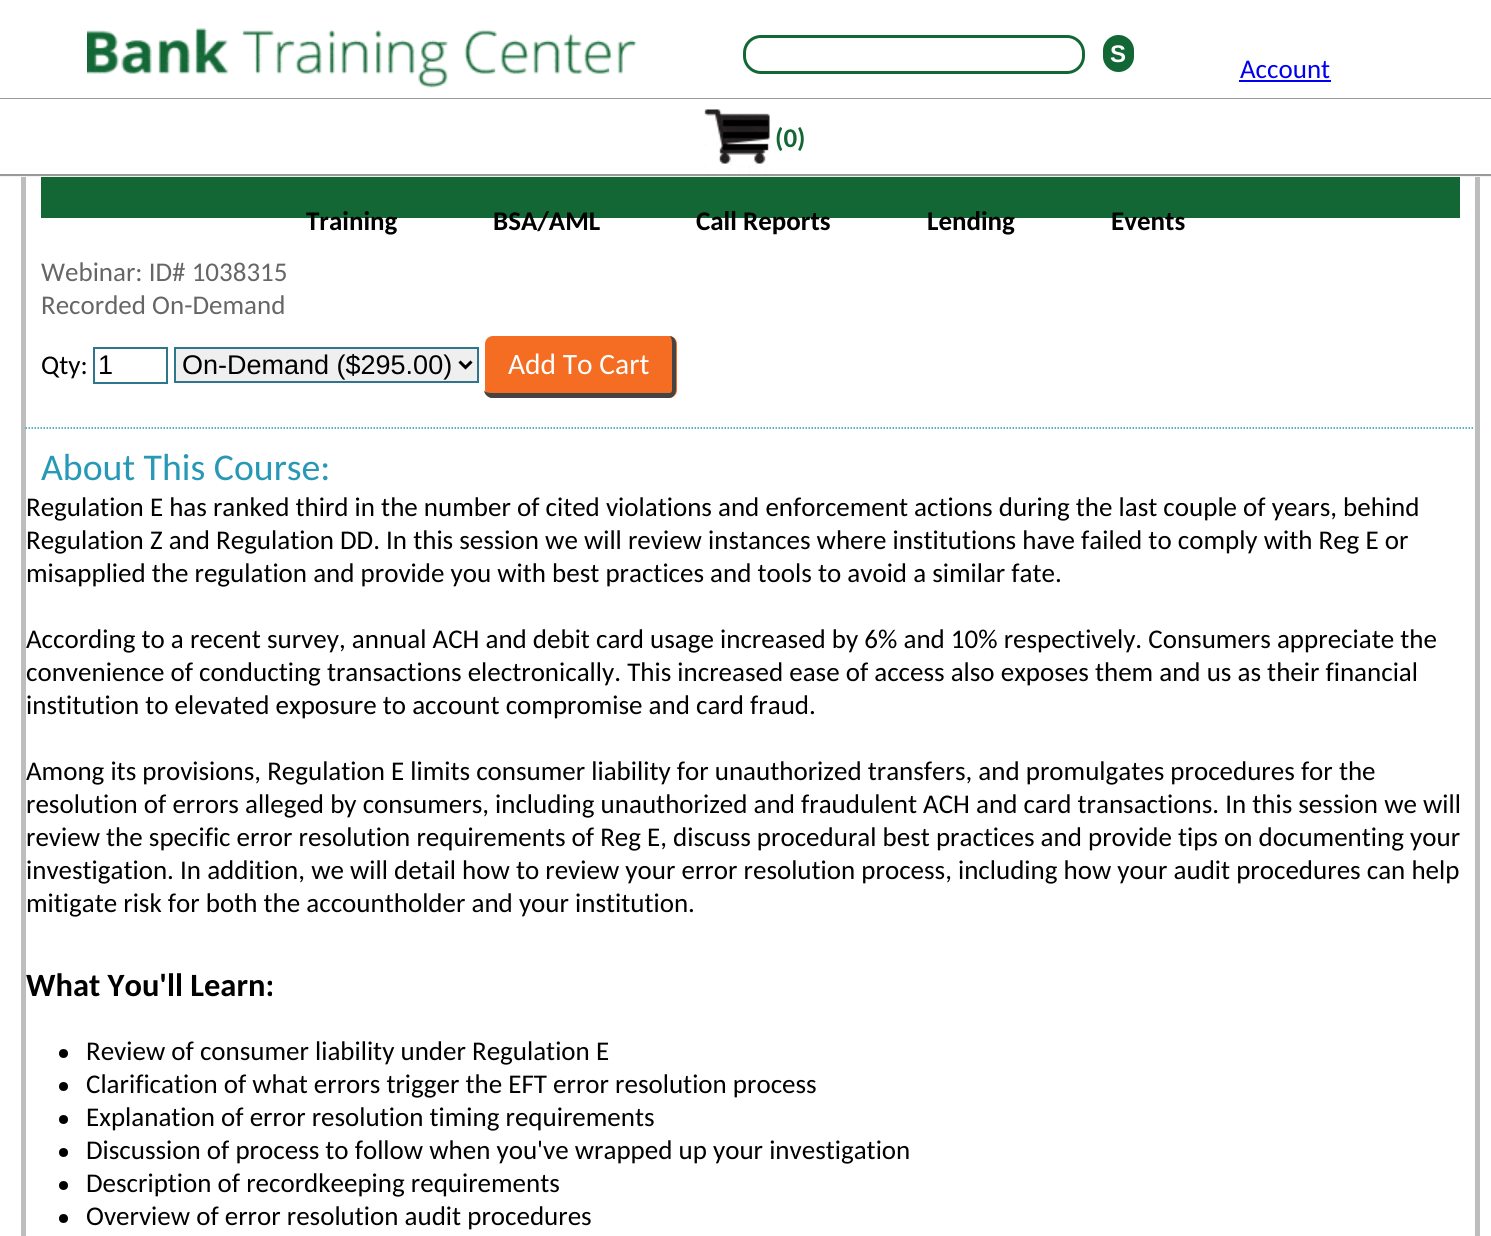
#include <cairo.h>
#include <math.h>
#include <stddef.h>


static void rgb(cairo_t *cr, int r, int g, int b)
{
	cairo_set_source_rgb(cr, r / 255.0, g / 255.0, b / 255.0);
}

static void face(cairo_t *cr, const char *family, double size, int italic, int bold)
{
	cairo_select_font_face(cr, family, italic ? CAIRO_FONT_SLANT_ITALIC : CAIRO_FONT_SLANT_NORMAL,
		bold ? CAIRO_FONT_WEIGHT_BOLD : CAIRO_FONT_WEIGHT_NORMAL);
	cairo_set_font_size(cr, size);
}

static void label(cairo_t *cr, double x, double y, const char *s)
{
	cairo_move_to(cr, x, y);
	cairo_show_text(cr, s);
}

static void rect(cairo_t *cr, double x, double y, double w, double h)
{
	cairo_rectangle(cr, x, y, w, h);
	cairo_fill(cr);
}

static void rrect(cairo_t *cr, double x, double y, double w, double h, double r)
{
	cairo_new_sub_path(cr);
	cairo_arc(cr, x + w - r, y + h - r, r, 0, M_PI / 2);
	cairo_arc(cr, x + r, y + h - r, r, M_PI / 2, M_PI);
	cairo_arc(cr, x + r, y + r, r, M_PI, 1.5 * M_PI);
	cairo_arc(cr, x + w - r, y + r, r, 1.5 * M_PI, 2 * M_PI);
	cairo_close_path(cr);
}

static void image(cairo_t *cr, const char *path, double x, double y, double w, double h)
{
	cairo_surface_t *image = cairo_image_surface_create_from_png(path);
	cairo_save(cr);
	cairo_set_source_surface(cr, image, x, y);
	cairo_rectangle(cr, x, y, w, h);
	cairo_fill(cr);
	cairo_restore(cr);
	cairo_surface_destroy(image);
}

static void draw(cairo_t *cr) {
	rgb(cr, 255, 255, 255);
	cairo_paint(cr);
	rgb(cr, 242, 242, 242);
	rect(cr, 0, 176, 1491, 1);
	rgb(cr, 153, 153, 153);
	rect(cr, 0, 98, 1491, 1);
	image(cr, "image0.png", 87, 28, 550, 60);
	rrect(cr, 744.5, 36.5, 339, 36, 16.5);
	rgb(cr, 18, 103, 53);
	cairo_set_line_width(cr, 3);
	cairo_stroke(cr);
	rrect(cr, 1103, 35, 31, 37, 15.5);
	cairo_fill(cr);
	face(cr, "Liberation Sans", 24, 0, 1);
	rgb(cr, 255, 255, 255);
	label(cr, 1110, 62, "S");
	face(cr, "Carlito", 27, 0, 0);
	rgb(cr, 0, 0, 238);
	label(cr, 1240, 78, "Account");
	rect(cr, 1239, 80, 92, 2);
	image(cr, "image1.png", 704, 109, 70, 64);
	face(cr, "Carlito", 27, 0, 1);
	rgb(cr, 18, 103, 53);
	label(cr, 775, 147, "(0)");
	rgb(cr, 153, 153, 153);
	rect(cr, 0, 174, 1491, 2);
	image(cr, "image2.png", 722, 119, 47, 32);
	rgb(cr, 18, 103, 53);
	rect(cr, 41, 177, 1419, 41);
	rgb(cr, 0, 0, 0);
	label(cr, 306, 230, "Training");
	label(cr, 493, 230, "BSA/AML");
	label(cr, 696, 230, "Call Reports");
	label(cr, 927, 230, "Lending");
	label(cr, 1111, 230, "Events");
	rgb(cr, 189, 189, 189);
	rect(cr, 1475, 177, 5, 1059);
	rect(cr, 21, 177, 5, 1059);
	face(cr, "Carlito", 27, 0, 0);
	rgb(cr, 102, 102, 102);
	label(cr, 41, 281, "Webinar: ID# 1038315");
	label(cr, 41, 314, "Recorded On-Demand");
	rgb(cr, 0, 0, 0);
	label(cr, 41, 374, "Qty:");
	cairo_rectangle(cr, 94, 348, 73, 35);
	rgb(cr, 48, 118, 138);
	cairo_set_line_width(cr, 2);
	cairo_stroke(cr);
	face(cr, "Liberation Sans", 27, 0, 0);
	rgb(cr, 0, 0, 0);
	label(cr, 98, 374, "1");
	rgb(cr, 239, 239, 239);
	cairo_rectangle(cr, 175, 348, 303, 34);
	cairo_fill_preserve(cr);
	rgb(cr, 48, 118, 138);
	cairo_stroke(cr);
	cairo_new_path(cr);
	cairo_move_to(cr, 459.5, 361.5);
	cairo_line_to(cr, 465.5, 367.5);
	cairo_line_to(cr, 471.5, 361.5);
	rgb(cr, 0, 0, 0);
	cairo_set_line_width(cr, 3);
	cairo_stroke(cr);
	label(cr, 182, 374, "On-Demand ($295.00)");
	rgb(cr, 244, 109, 35);
	rrect(cr, 485, 336, 192, 62, 8);
	cairo_fill(cr);
	rgb(cr, 68, 68, 68);
	cairo_set_fill_rule(cr, CAIRO_FILL_RULE_EVEN_ODD);
	cairo_new_path(cr);
	cairo_move_to(cr, 492, 336);
	cairo_line_to(cr, 669, 336);
	cairo_curve_to(cr, 673, 336, 676, 339, 676, 344);
	cairo_line_to(cr, 676, 390);
	cairo_curve_to(cr, 676, 394, 673, 398, 669, 398);
	cairo_line_to(cr, 492, 398);
	cairo_curve_to(cr, 488, 398, 484, 394, 484, 390);
	cairo_line_to(cr, 484, 344);
	cairo_curve_to(cr, 484, 339, 488, 336, 492, 336);
	cairo_close_path(cr);
	cairo_move_to(cr, 492, 336);
	cairo_line_to(cr, 669, 336);
	cairo_curve_to(cr, 671, 336, 672, 339, 672, 344);
	cairo_line_to(cr, 672, 390);
	cairo_curve_to(cr, 672, 392, 671, 393, 669, 393);
	cairo_line_to(cr, 492, 393);
	cairo_curve_to(cr, 488, 393, 484, 392, 484, 390);
	cairo_line_to(cr, 484, 344);
	cairo_curve_to(cr, 484, 339, 488, 336, 492, 336);
	cairo_close_path(cr);
	cairo_fill(cr);
	face(cr, "Carlito", 29.5, 0, 0);
	rgb(cr, 255, 255, 255);
	label(cr, 508, 374, "Add To Cart");
	cairo_new_path(cr);
	cairo_move_to(cr, 25.5, 428);
	cairo_line_to(cr, 1474.5, 428);
	rgb(cr, 39, 153, 183);
	cairo_set_line_width(cr, 1.5);
	cairo_set_dash(cr, (double[]){1.5, 1.5}, 2, 0);
	cairo_stroke(cr);
	face(cr, "Carlito", 37.75, 0, 0);
	label(cr, 41, 480, "About This Course:");
	face(cr, "Carlito", 27, 0, 0);
	rgb(cr, 0, 0, 0);
	label(cr, 26, 516, "Regulation E has ranked third in the number of cited violations and enforcement actions during the last couple of years, behind");
	label(cr, 26, 549, "Regulation Z and Regulation DD. In this session we will review instances where institutions have failed to comply with Reg E or");
	label(cr, 26, 582, "misapplied the regulation and provide you with best practices and tools to avoid a similar fate.");
	label(cr, 26, 648, "According to a recent survey, annual ACH and debit card usage increased by 6% and 10% respectively. Consumers appreciate the");
	label(cr, 26, 681, "convenience of conducting transactions electronically. This increased ease of access also exposes them and us as their financial");
	label(cr, 26, 714, "institution to elevated exposure to account compromise and card fraud.");
	label(cr, 26, 780, "Among its provisions, Regulation E limits consumer liability for unauthorized transfers, and promulgates procedures for the");
	label(cr, 26, 813, "resolution of errors alleged by consumers, including unauthorized and fraudulent ACH and card transactions. In this session we will");
	label(cr, 26, 846, "review the specific error resolution requirements of Reg E, discuss procedural best practices and provide tips on documenting your");
	label(cr, 26, 879, "investigation. In addition, we will detail how to review your error resolution process, including how your audit procedures can help");
	label(cr, 26, 912, "mitigate risk for both the accountholder and your institution.");
	face(cr, "Carlito", 32.5, 0, 1);
	label(cr, 26, 996, "What You'll Learn:");
	cairo_new_path(cr);
	cairo_arc(cr, 63.5, 1053.5, 4.5, 0, 2 * M_PI);
	cairo_fill(cr);
	face(cr, "Carlito", 27, 0, 0);
	label(cr, 86, 1060, "Review of consumer liability under Regulation E");
	cairo_new_path(cr);
	cairo_arc(cr, 63.5, 1086.5, 4.5, 0, 2 * M_PI);
	cairo_fill(cr);
	label(cr, 86, 1093, "Clarification of what errors trigger the EFT error resolution process");
	cairo_new_path(cr);
	cairo_arc(cr, 63.5, 1119.5, 4.5, 0, 2 * M_PI);
	cairo_fill(cr);
	label(cr, 86, 1126, "Explanation of error resolution timing requirements");
	cairo_new_path(cr);
	cairo_arc(cr, 63.5, 1152.5, 4.5, 0, 2 * M_PI);
	cairo_fill(cr);
	label(cr, 86, 1159, "Discussion of process to follow when you've wrapped up your investigation");
	cairo_new_path(cr);
	cairo_arc(cr, 63.5, 1185.5, 4.5, 0, 2 * M_PI);
	cairo_fill(cr);
	label(cr, 86, 1192, "Description of recordkeeping requirements");
	cairo_new_path(cr);
	cairo_arc(cr, 63.5, 1218.5, 4.5, 0, 2 * M_PI);
	cairo_fill(cr);
	label(cr, 86, 1225, "Overview of error resolution audit procedures");
}

int main(void) {
	cairo_surface_t *surface = cairo_image_surface_create(CAIRO_FORMAT_RGB24, 1491, 1236);
	cairo_t *cr = cairo_create(surface);
	cairo_font_options_t *options = cairo_font_options_create();
	cairo_font_options_set_hint_metrics(options, CAIRO_HINT_METRICS_OFF);
	cairo_font_options_set_hint_style(options, CAIRO_HINT_STYLE_NONE);
	cairo_set_font_options(cr, options);
	cairo_set_miter_limit(cr, 4);
	draw(cr);
	cairo_surface_write_to_png(surface, "render.png");
	cairo_font_options_destroy(options);
	cairo_destroy(cr);
	cairo_surface_destroy(surface);
	return 0;
}
